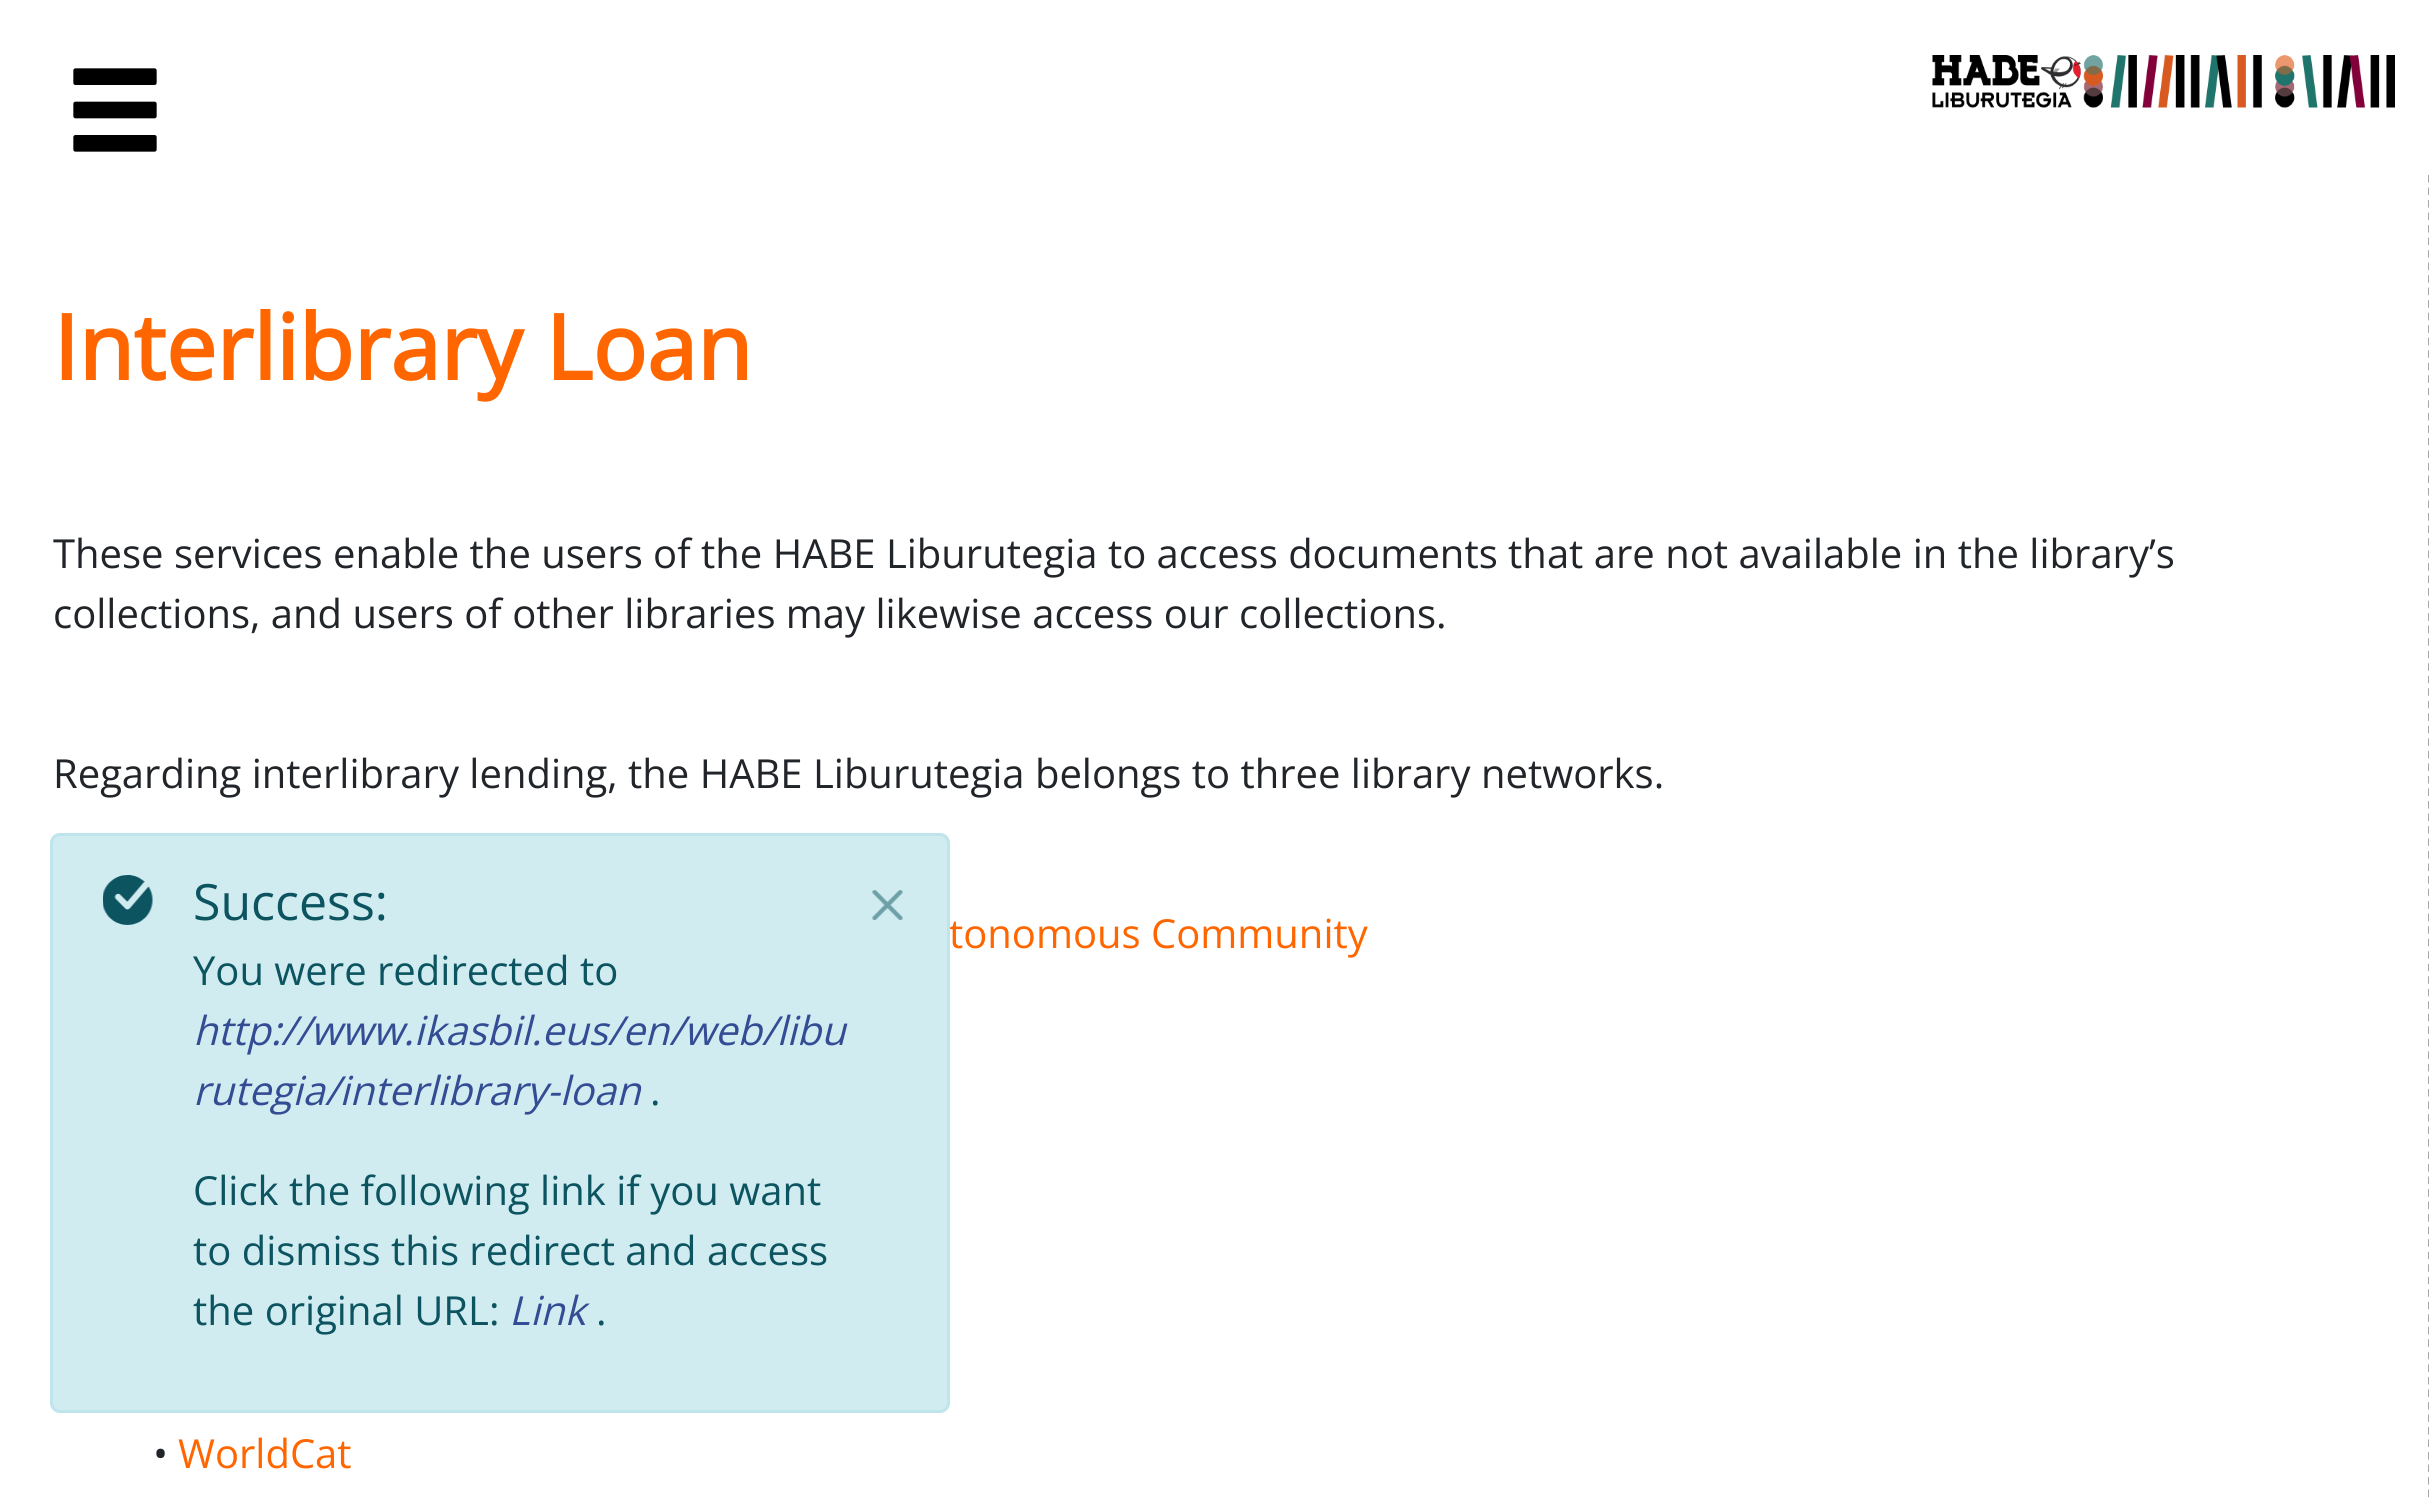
#include <cairo.h>
#include <math.h>
#include <stddef.h>


static void rgb(cairo_t *cr, int r, int g, int b)
{
	cairo_set_source_rgb(cr, r / 255.0, g / 255.0, b / 255.0);
}

static void face(cairo_t *cr, const char *family, double size, int italic, int bold)
{
	cairo_select_font_face(cr, family, italic ? CAIRO_FONT_SLANT_ITALIC : CAIRO_FONT_SLANT_NORMAL,
		bold ? CAIRO_FONT_WEIGHT_BOLD : CAIRO_FONT_WEIGHT_NORMAL);
	cairo_set_font_size(cr, size);
}

static void label(cairo_t *cr, double x, double y, const char *s)
{
	cairo_move_to(cr, x, y);
	cairo_show_text(cr, s);
}

static void rect(cairo_t *cr, double x, double y, double w, double h)
{
	cairo_rectangle(cr, x, y, w, h);
	cairo_fill(cr);
}

static void rrect(cairo_t *cr, double x, double y, double w, double h, double r)
{
	cairo_new_sub_path(cr);
	cairo_arc(cr, x + w - r, y + h - r, r, 0, M_PI / 2);
	cairo_arc(cr, x + r, y + h - r, r, M_PI / 2, M_PI);
	cairo_arc(cr, x + r, y + r, r, M_PI, 1.5 * M_PI);
	cairo_arc(cr, x + w - r, y + r, r, 1.5 * M_PI, 2 * M_PI);
	cairo_close_path(cr);
}

static void image(cairo_t *cr, const char *path, double x, double y, double w, double h)
{
	cairo_surface_t *image = cairo_image_surface_create_from_png(path);
	cairo_save(cr);
	cairo_set_source_surface(cr, image, x, y);
	cairo_rectangle(cr, x, y, w, h);
	cairo_fill(cr);
	cairo_restore(cr);
	cairo_surface_destroy(image);
}

static void draw(cairo_t *cr) {
	rgb(cr, 255, 255, 255);
	cairo_paint(cr);
	image(cr, "image0.png", 73, 68, 84, 84);
	image(cr, "image1.png", 1932, 55, 463, 53);
	cairo_new_path(cr);
	cairo_move_to(cr, 2429, 175);
	cairo_line_to(cr, 2429, 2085);
	rgb(cr, 167, 167, 167);
	cairo_set_line_width(cr, 2.5);
	cairo_set_dash(cr, (double[]){7.5, 5.02}, 2, 0);
	cairo_stroke(cr);
	face(cr, "Open Sans", 90, 0, 1);
	rgb(cr, 255, 102, 0);
	label(cr, 53, 380, "Interlibrary Loan");
	face(cr, "Open Sans", 40, 0, 0);
	rgb(cr, 33, 37, 41);
	label(cr, 53, 568, "These services enable the users of the HABE Liburutegia to access documents that are not available in the library’s");
	label(cr, 53, 628, "collections, and users of other libraries may likewise access our collections.");
	label(cr, 53, 788, "Regarding interlibrary lending, the HABE Liburutegia belongs to three library networks.");
	rgb(cr, 255, 102, 0);
	label(cr, 949, 948, "tonomous Community");
	rgb(cr, 33, 37, 41);
	label(cr, 153, 1468, "•");
	rgb(cr, 255, 102, 0);
	label(cr, 178, 1468, "WorldCat");
	rgb(cr, 255, 255, 255);
	rect(cr, 2427, 175, 1, 1322);
	rgb(cr, 209, 236, 241);
	rrect(cr, 51.5, 834.5, 897, 577, 8.5);
	cairo_fill_preserve(cr);
	rgb(cr, 190, 229, 235);
	cairo_set_line_width(cr, 3);
	cairo_set_dash(cr, NULL, 0, 0);
	cairo_stroke(cr);
	image(cr, "image2.png", 103, 875, 50, 50);
	face(cr, "Open Sans", 50, 0, 0);
	rgb(cr, 12, 84, 96);
	label(cr, 193, 920, "Success:");
	face(cr, "Open Sans", 40, 0, 0);
	label(cr, 193, 985, "You were redirected to");
	face(cr, "Open Sans", 40, 1, 0);
	rgb(cr, 51, 76, 148);
	label(cr, 193, 1045, "http://www.ikasbil.eus/en/web/libu");
	label(cr, 193, 1105, "rutegia/interlibrary-loan");
	face(cr, "Open Sans", 40, 0, 0);
	rgb(cr, 12, 84, 96);
	label(cr, 650, 1105, ".");
	label(cr, 193, 1205, "Click the following link if you want");
	label(cr, 193, 1265, "to dismiss this redirect and access");
	label(cr, 193, 1325, "the original URL:");
	face(cr, "Open Sans", 40, 1, 0);
	rgb(cr, 51, 76, 148);
	label(cr, 509, 1325, "Link");
	face(cr, "Open Sans", 40, 0, 0);
	rgb(cr, 12, 84, 96);
	label(cr, 596, 1325, ".");
	image(cr, "image3.png", 872, 890, 31, 30);
}

int main(void) {
	cairo_surface_t *surface = cairo_image_surface_create(CAIRO_FORMAT_RGB24, 2429, 1501);
	cairo_t *cr = cairo_create(surface);
	cairo_font_options_t *options = cairo_font_options_create();
	cairo_font_options_set_hint_metrics(options, CAIRO_HINT_METRICS_OFF);
	cairo_font_options_set_hint_style(options, CAIRO_HINT_STYLE_NONE);
	cairo_set_font_options(cr, options);
	cairo_set_miter_limit(cr, 4);
	draw(cr);
	cairo_surface_write_to_png(surface, "render.png");
	cairo_font_options_destroy(options);
	cairo_destroy(cr);
	cairo_surface_destroy(surface);
	return 0;
}
